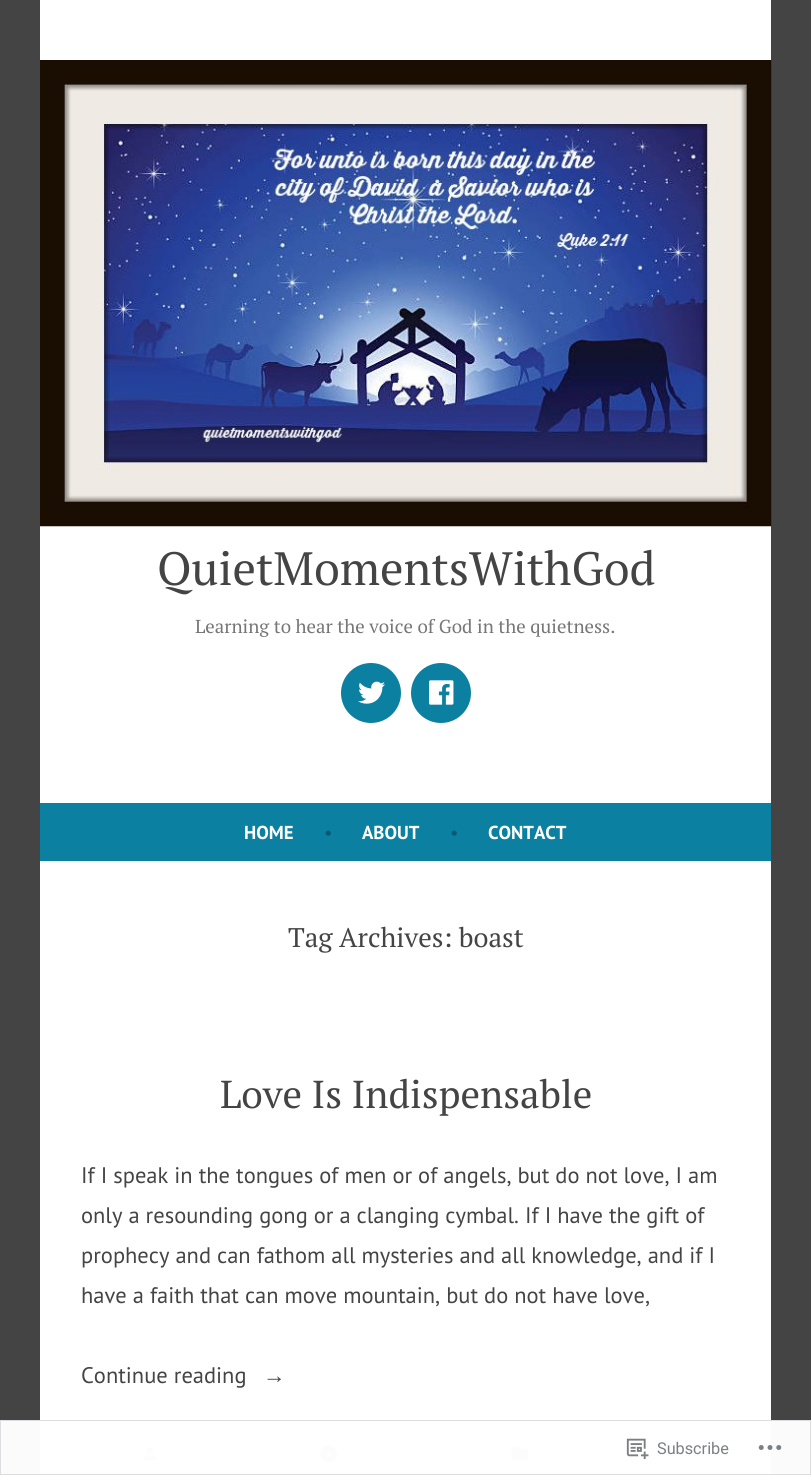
#include <cairo.h>
#include <math.h>
#include <stddef.h>


static void rgb(cairo_t *cr, int r, int g, int b)
{
	cairo_set_source_rgb(cr, r / 255.0, g / 255.0, b / 255.0);
}

static void face(cairo_t *cr, const char *family, double size, int italic, int bold)
{
	cairo_select_font_face(cr, family, italic ? CAIRO_FONT_SLANT_ITALIC : CAIRO_FONT_SLANT_NORMAL,
		bold ? CAIRO_FONT_WEIGHT_BOLD : CAIRO_FONT_WEIGHT_NORMAL);
	cairo_set_font_size(cr, size);
}

static void label(cairo_t *cr, double x, double y, const char *s)
{
	cairo_move_to(cr, x, y);
	cairo_show_text(cr, s);
}

static void rect(cairo_t *cr, double x, double y, double w, double h)
{
	cairo_rectangle(cr, x, y, w, h);
	cairo_fill(cr);
}

static void image(cairo_t *cr, const char *path, double x, double y, double w, double h)
{
	cairo_surface_t *image = cairo_image_surface_create_from_png(path);
	cairo_save(cr);
	cairo_set_source_surface(cr, image, x, y);
	cairo_rectangle(cr, x, y, w, h);
	cairo_fill(cr);
	cairo_restore(cr);
	cairo_surface_destroy(image);
}

static void draw(cairo_t *cr) {
	rgb(cr, 68, 68, 68);
	cairo_paint(cr);
	rgb(cr, 251, 251, 251);
	rect(cr, 0, 1420, 811, 55);
	rgb(cr, 255, 255, 255);
	rect(cr, 40, 0, 731, 1475);
	image(cr, "image0.png", 40, 60, 732, 467);
	face(cr, "PT Serif", 46.75, 0, 0);
	rgb(cr, 68, 68, 68);
	label(cr, 157, 585, "QuietMomentsWithGod");
	face(cr, "PT Serif", 18.75, 0, 0);
	rgb(cr, 118, 118, 118);
	label(cr, 195, 633, "Learning to hear the voice of God in the quietness.");
	rgb(cr, 12, 128, 161);
	cairo_new_path(cr);
	cairo_arc(cr, 371, 693, 30, 0, 2 * M_PI);
	cairo_fill(cr);
	image(cr, "image1.png", 358, 681, 27, 23);
	cairo_arc(cr, 441, 693, 30, 0, 2 * M_PI);
	cairo_fill(cr);
	image(cr, "image2.png", 429, 680, 25, 25);
	rect(cr, 40, 803, 731, 58);
	face(cr, "PT Sans", 18.75, 0, 1);
	rgb(cr, 255, 255, 255);
	label(cr, 244, 839, "HOME");
	face(cr, "PT Sans", 18.75, 0, 0);
	rgb(cr, 8, 90, 114);
	label(cr, 324, 839, "•");
	face(cr, "PT Sans", 18.75, 0, 1);
	rgb(cr, 255, 255, 255);
	label(cr, 362, 839, "ABOUT");
	face(cr, "PT Sans", 18.75, 0, 0);
	rgb(cr, 8, 90, 114);
	label(cr, 450, 839, "•");
	face(cr, "PT Sans", 18.75, 0, 1);
	rgb(cr, 255, 255, 255);
	label(cr, 488, 839, "CONTACT");
	face(cr, "PT Serif", 27, 0, 0);
	rgb(cr, 68, 68, 68);
	label(cr, 288, 947, "Tag Archives: boast");
	face(cr, "PT Serif", 38.9, 0, 0);
	label(cr, 220, 1108, "Love Is Indispensable");
	face(cr, "PT Sans", 22.5, 0, 0);
	label(cr, 81, 1183, "If I speak in the tongues of men or of angels, but do not love, I am");
	label(cr, 81, 1223, "only a resounding gong or a clanging cymbal. If I have the gift of");
	label(cr, 81, 1263, "prophecy and can fathom all mysteries and all knowledge, and if I");
	label(cr, 81, 1303, "have a faith that can move mountain, but do not have love,");
	label(cr, 81, 1383, "Continue reading");
	face(cr, "Liberation Sans", 22.5, 0, 0);
	label(cr, 263, 1383, "→");
	image(cr, "image3.png", 143, 1447, 14, 14);
	image(cr, "image4.png", 320, 1445, 18, 18);
	image(cr, "image5.png", 511, 1447, 18, 14);
	cairo_rectangle(cr, 0.5, 1420.5, 810, 54);
	cairo_set_source_rgba(cr, 0.863, 0.863, 0.871, 0.98);
	cairo_set_line_width(cr, 1);
	cairo_stroke(cr);
	image(cr, "image6.png", 626, 1438, 23, 22);
	face(cr, "Roboto", 16.25, 0, 0);
	rgb(cr, 123, 127, 133);
	label(cr, 657, 1454, "Subscribe");
	image(cr, "image7.png", 758, 1445, 24, 5);
}

int main(void) {
	cairo_surface_t *surface = cairo_image_surface_create(CAIRO_FORMAT_RGB24, 811, 1475);
	cairo_t *cr = cairo_create(surface);
	cairo_font_options_t *options = cairo_font_options_create();
	cairo_font_options_set_hint_metrics(options, CAIRO_HINT_METRICS_OFF);
	cairo_font_options_set_hint_style(options, CAIRO_HINT_STYLE_NONE);
	cairo_set_font_options(cr, options);
	cairo_set_miter_limit(cr, 4);
	draw(cr);
	cairo_surface_write_to_png(surface, "render.png");
	cairo_font_options_destroy(options);
	cairo_destroy(cr);
	cairo_surface_destroy(surface);
	return 0;
}
